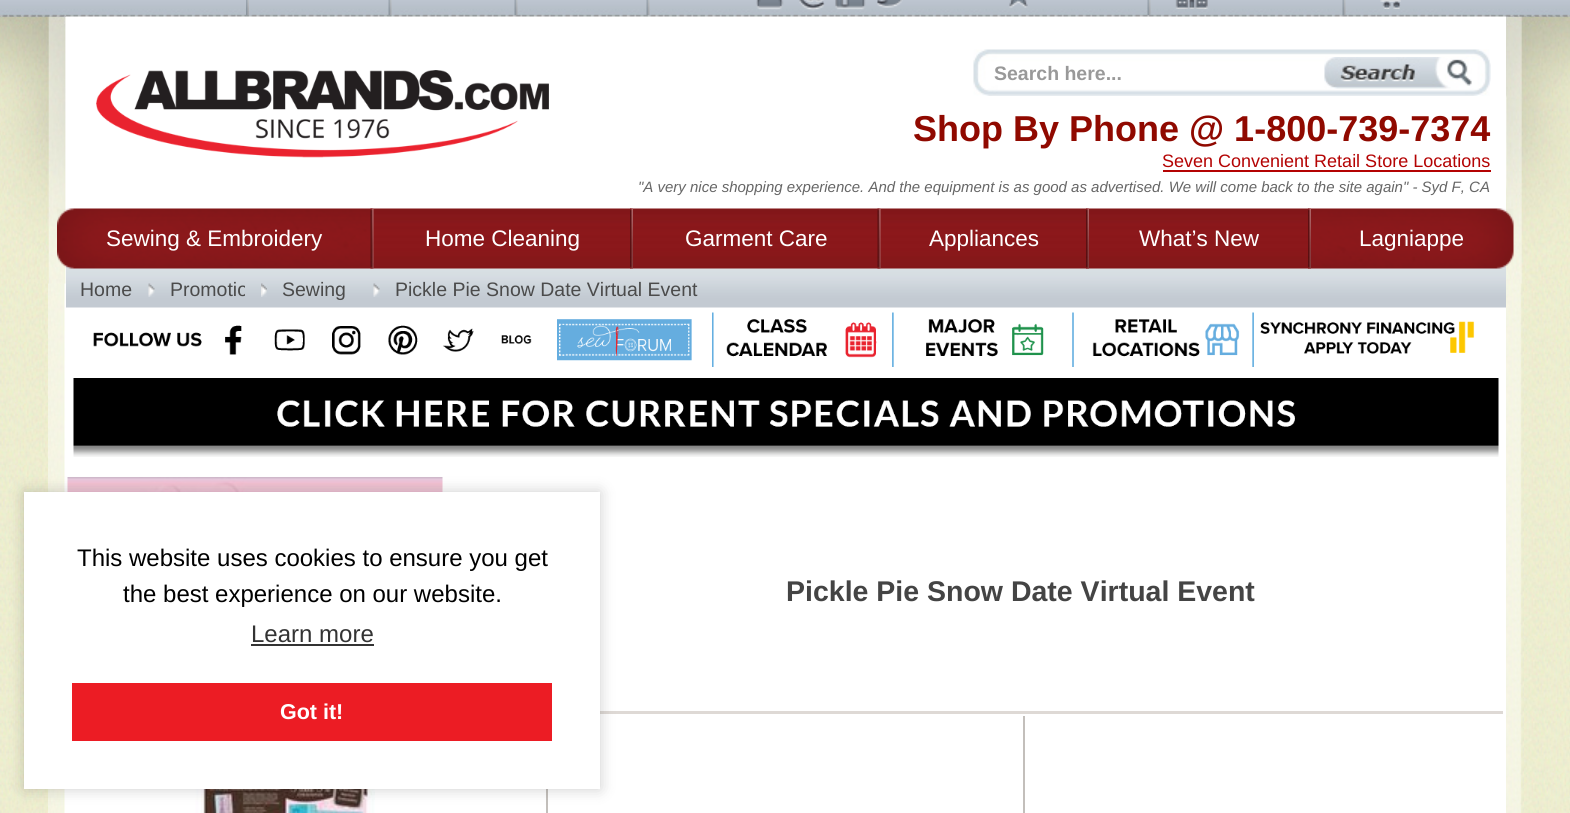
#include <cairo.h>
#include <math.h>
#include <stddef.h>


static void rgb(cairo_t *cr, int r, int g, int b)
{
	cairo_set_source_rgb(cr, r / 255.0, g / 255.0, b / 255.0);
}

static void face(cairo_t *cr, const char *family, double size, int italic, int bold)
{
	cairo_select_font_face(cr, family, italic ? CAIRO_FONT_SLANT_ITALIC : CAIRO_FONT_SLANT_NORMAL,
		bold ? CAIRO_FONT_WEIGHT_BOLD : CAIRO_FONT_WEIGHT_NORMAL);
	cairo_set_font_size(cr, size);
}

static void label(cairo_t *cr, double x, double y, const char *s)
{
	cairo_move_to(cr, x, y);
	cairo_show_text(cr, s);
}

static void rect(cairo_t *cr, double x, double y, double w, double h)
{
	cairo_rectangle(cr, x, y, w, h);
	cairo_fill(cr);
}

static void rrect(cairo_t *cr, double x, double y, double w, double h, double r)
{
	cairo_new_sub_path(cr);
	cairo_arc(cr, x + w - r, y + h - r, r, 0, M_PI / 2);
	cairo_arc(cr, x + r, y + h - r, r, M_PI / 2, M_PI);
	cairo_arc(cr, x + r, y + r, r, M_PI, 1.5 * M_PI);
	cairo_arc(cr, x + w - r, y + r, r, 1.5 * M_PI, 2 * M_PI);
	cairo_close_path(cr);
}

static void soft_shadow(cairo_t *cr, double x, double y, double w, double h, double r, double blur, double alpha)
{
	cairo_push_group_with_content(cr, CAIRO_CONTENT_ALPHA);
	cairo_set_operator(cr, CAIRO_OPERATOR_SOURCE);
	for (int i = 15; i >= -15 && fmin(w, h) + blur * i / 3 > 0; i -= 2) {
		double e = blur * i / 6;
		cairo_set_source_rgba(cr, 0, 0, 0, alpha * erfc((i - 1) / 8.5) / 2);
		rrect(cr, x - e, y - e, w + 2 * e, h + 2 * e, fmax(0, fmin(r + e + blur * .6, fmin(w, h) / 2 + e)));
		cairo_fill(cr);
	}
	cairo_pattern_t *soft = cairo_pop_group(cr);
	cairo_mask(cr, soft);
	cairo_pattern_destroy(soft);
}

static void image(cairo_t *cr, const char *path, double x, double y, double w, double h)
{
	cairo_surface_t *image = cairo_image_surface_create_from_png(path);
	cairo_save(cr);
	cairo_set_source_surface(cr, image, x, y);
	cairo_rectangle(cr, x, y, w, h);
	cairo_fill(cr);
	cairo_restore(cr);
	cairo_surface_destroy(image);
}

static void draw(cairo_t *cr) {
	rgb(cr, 255, 255, 255);
	cairo_paint(cr);
	image(cr, "image14.png", 0, 283, 1570, 530);
	image(cr, "image15.png", 48, 283, 1476, 530);
	image(cr, "image16.png", 0, 16, 1570, 268);
	rgb(cr, 255, 255, 255);
	rect(cr, 66, 16, 1440, 797);
	image(cr, "image0.png", 0, 0, 1570, 17);
	image(cr, "image1.png", 246, 0, 3, 15);
	image(cr, "image2.png", 388, 0, 4, 15);
	image(cr, "image3.png", 514, 0, 4, 15);
	image(cr, "image4.png", 646, 0, 4, 15);
	image(cr, "image5.png", 756, 0, 28, 10);
	image(cr, "image6.png", 799, 0, 26, 11);
	image(cr, "image7.png", 835, 0, 31, 10);
	image(cr, "image8.png", 877, 0, 26, 8);
	image(cr, "image9.png", 1147, 0, 4, 15);
	image(cr, "image10.png", 1009, 0, 19, 8);
	image(cr, "image11.png", 1342, 0, 4, 15);
	image(cr, "image12.png", 1175, 0, 33, 9);
	image(cr, "image13.png", 1380, 0, 21, 9);
	image(cr, "image17.png", 96, 70, 453, 88);
	image(cr, "image18.png", 973, 49, 518, 47);
	face(cr, "Liberation Sans", 19.5, 0, 1);
	rgb(cr, 153, 153, 153);
	label(cr, 994, 80, "Search here...");
	image(cr, "image19.png", 1324, 57, 148, 32);
	face(cr, "Liberation Sans", 36, 0, 1);
	rgb(cr, 144, 9, 0);
	label(cr, 913, 141, "Shop By Phone @ 1-800-739-7374");
	face(cr, "Liberation Sans", 18, 0, 0);
	rgb(cr, 180, 3, 3);
	label(cr, 1162, 167, "Seven Convenient Retail Store Locations");
	rect(cr, 1163, 170, 328, 2);
	face(cr, "Liberation Sans", 15, 1, 0);
	rgb(cr, 102, 102, 102);
	label(cr, 638, 192, "\"A very nice shopping experience. And the equipment is as good as advertised. We will come back to the site again\" - Syd F, CA");
	image(cr, "image30.png", 66, 262, 1440, 46);
	image(cr, "image20.png", 57, 208, 317, 61);
	image(cr, "image21.png", 370, 208, 4, 61);
	face(cr, "Liberation Sans", 22.5, 0, 0);
	rgb(cr, 255, 255, 255);
	label(cr, 106, 246, "Sewing & Embroidery");
	image(cr, "image22.png", 373, 208, 260, 61);
	image(cr, "image23.png", 630, 208, 3, 61);
	label(cr, 425, 246, "Home Cleaning");
	image(cr, "image24.png", 633, 208, 248, 61);
	image(cr, "image25.png", 877, 208, 4, 61);
	label(cr, 685, 246, "Garment Care");
	image(cr, "image26.png", 880, 208, 209, 61);
	image(cr, "image27.png", 1086, 208, 3, 61);
	label(cr, 929, 246, "Appliances");
	image(cr, "image28.png", 1089, 208, 222, 61);
	image(cr, "image23.png", 1308, 208, 3, 61);
	label(cr, 1139, 246, "What’s New");
	image(cr, "image29.png", 1311, 208, 203, 61);
	label(cr, 1359, 246, "Lagniappe");
	image(cr, "image31.png", 148, 283, 7, 14);
	face(cr, "Liberation Sans", 19.5, 0, 0);
	rgb(cr, 75, 75, 75);
	label(cr, 80, 296, "Home");
	image(cr, "image32.png", 261, 283, 6, 14);
	cairo_save(cr);
	cairo_rectangle(cr, 170, 270, 75, 38);
	cairo_clip(cr);
	label(cr, 170, 296, "Promotio");
	cairo_restore(cr);
	image(cr, "image33.png", 373, 283, 7, 14);
	label(cr, 282, 296, "Sewing");
	label(cr, 395, 296, "Pickle Pie Snow Date Virtual Event");
	image(cr, "image34.png", 93, 312, 1382, 55);
	image(cr, "image35.png", 73, 378, 1426, 79);
	image(cr, "image36.png", 67, 477, 376, 15);
	face(cr, "Liberation Sans", 28.5, 0, 1);
	rgb(cr, 68, 68, 68);
	label(cr, 786, 601, "Pickle Pie Snow Date Virtual Event");
	rgb(cr, 222, 217, 213);
	rect(cr, 600, 711, 903, 3);
	rgb(cr, 195, 191, 187);
	rect(cr, 546, 789, 2, 24);
	image(cr, "image37.png", 195, 789, 180, 24);
	rect(cr, 1023, 716, 2, 97);
	rgb(cr, 0, 0, 0);
	soft_shadow(cr, 24, 492, 576, 297, 0, 7.5, 0.2);
	rgb(cr, 255, 255, 255);
	rect(cr, 24, 492, 576, 297);
	face(cr, "Liberation Sans", 24, 0, 0);
	rgb(cr, 0, 0, 0);
	label(cr, 77, 566, "This website uses cookies to ensure you get");
	label(cr, 123, 602, "the best experience on our website.");
	rgb(cr, 51, 51, 51);
	label(cr, 251, 642, "Learn more");
	rect(cr, 251, 644, 123, 2);
	rgb(cr, 236, 28, 36);
	rect(cr, 72, 683, 480, 58);
	face(cr, "Liberation Sans", 21.5, 0, 1);
	rgb(cr, 255, 255, 255);
	label(cr, 280, 719, "Got it!");
}

int main(void) {
	cairo_surface_t *surface = cairo_image_surface_create(CAIRO_FORMAT_RGB24, 1570, 813);
	cairo_t *cr = cairo_create(surface);
	cairo_font_options_t *options = cairo_font_options_create();
	cairo_font_options_set_hint_metrics(options, CAIRO_HINT_METRICS_OFF);
	cairo_font_options_set_hint_style(options, CAIRO_HINT_STYLE_NONE);
	cairo_set_font_options(cr, options);
	cairo_set_miter_limit(cr, 4);
	draw(cr);
	cairo_surface_write_to_png(surface, "render.png");
	cairo_font_options_destroy(options);
	cairo_destroy(cr);
	cairo_surface_destroy(surface);
	return 0;
}
